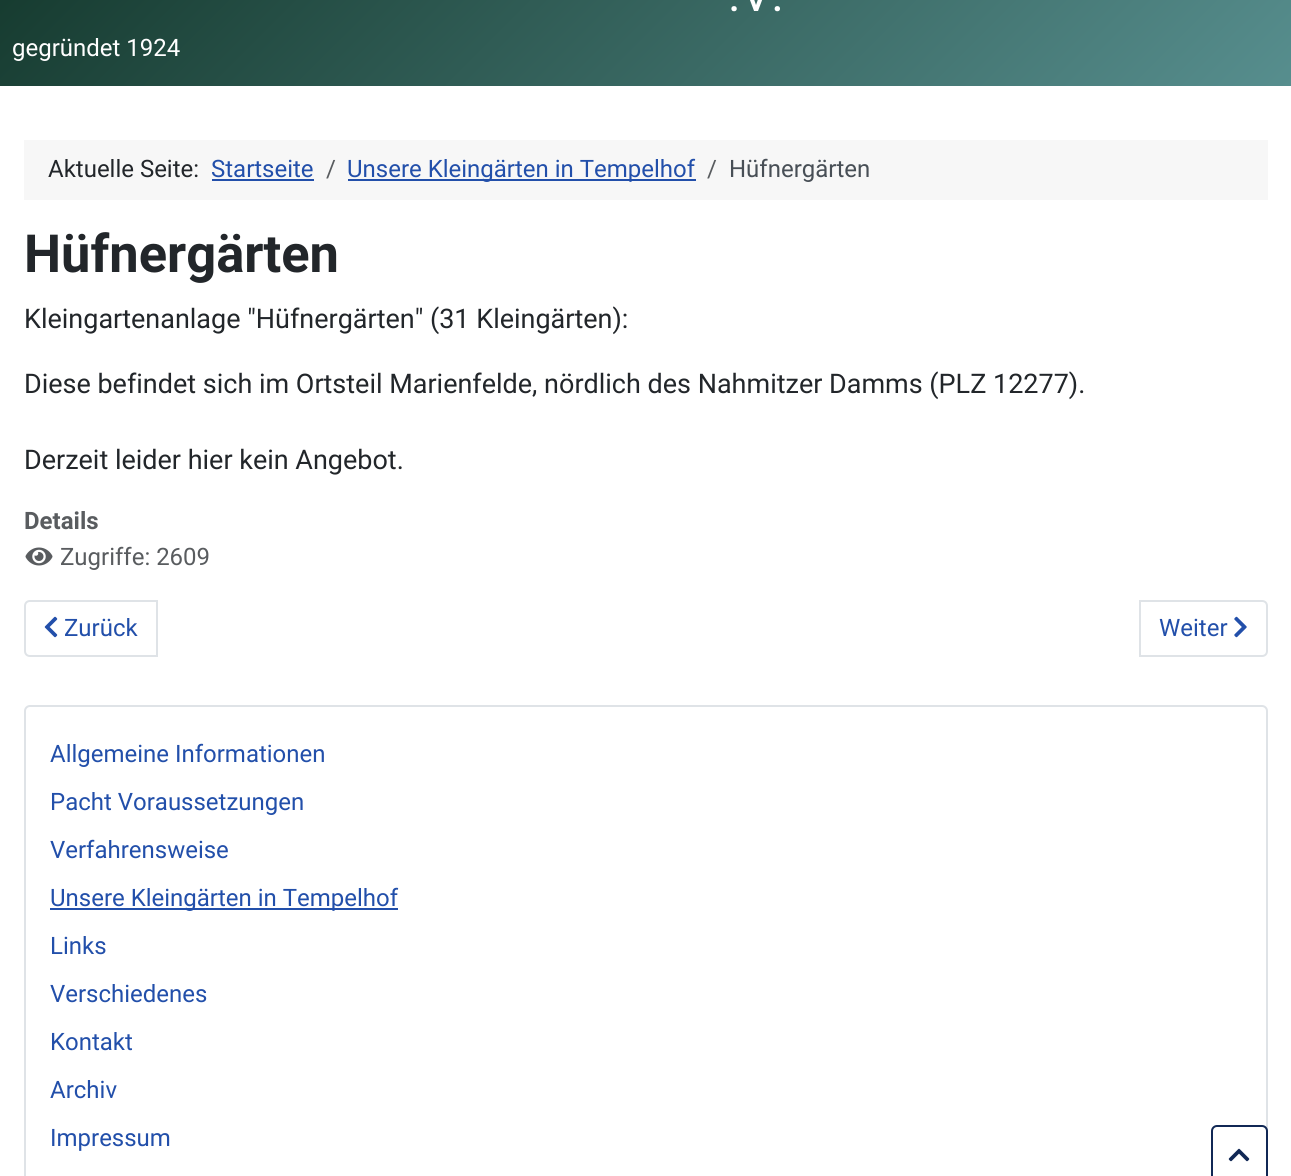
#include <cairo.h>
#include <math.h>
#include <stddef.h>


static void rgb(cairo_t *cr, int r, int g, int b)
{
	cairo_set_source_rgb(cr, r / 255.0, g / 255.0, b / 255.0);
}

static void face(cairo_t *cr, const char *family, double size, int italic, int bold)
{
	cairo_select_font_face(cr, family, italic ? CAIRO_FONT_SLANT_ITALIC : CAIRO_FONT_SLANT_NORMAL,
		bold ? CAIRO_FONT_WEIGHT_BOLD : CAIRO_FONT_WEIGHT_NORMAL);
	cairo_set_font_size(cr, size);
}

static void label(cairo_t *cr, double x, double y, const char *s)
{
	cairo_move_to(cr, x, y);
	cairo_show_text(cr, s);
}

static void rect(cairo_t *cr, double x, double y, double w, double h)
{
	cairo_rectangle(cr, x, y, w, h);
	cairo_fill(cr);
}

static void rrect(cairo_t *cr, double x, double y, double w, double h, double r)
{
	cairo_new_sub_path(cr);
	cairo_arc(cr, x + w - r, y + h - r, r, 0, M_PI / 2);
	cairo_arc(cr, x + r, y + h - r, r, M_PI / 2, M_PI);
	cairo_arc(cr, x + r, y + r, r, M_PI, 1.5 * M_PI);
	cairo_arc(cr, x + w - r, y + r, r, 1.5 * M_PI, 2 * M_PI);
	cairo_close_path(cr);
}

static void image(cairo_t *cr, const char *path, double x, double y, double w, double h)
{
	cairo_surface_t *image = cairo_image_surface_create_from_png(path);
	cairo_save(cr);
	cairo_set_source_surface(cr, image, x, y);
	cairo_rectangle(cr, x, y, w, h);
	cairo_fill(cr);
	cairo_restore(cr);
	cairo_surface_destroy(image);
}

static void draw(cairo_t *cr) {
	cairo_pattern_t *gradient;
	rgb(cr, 255, 255, 255);
	cairo_paint(cr);
	gradient = cairo_pattern_create_linear(286, -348, 1005, 372);
	cairo_pattern_add_color_stop_rgba(gradient, 0, 0.078, 0.22, 0.173, 1);
	cairo_pattern_add_color_stop_rgba(gradient, 1, 0.341, 0.557, 0.557, 1);
	cairo_set_source(cr, gradient);
	cairo_pattern_destroy(gradient);
	rect(cr, 0, 0, 1291, 86);
	face(cr, "Roboto", 48, 0, 0);
	rgb(cr, 255, 255, 255);
	label(cr, 728, 11, ".V.");
	face(cr, "Roboto", 24, 0, 0);
	label(cr, 12, 56, "gegründet 1924");
	rgb(cr, 247, 247, 247);
	rect(cr, 24, 140, 1244, 60);
	rgb(cr, 34, 38, 42);
	label(cr, 48, 177, "Aktuelle Seite:");
	rgb(cr, 34, 79, 170);
	label(cr, 211, 177, "Startseite");
	rect(cr, 212, 179, 102, 2);
	rgb(cr, 89, 92, 95);
	label(cr, 326, 177, "/");
	rgb(cr, 34, 79, 170);
	rect(cr, 348, 179, 348, 2);
	label(cr, 347, 177, "Unsere Kleingärten in Tempelhof");
	rgb(cr, 89, 92, 95);
	label(cr, 707, 177, "/");
	rgb(cr, 72, 79, 86);
	label(cr, 729, 177, "Hüfnergärten");
	face(cr, "Roboto", 52.5, 0, 1);
	rgb(cr, 34, 38, 42);
	label(cr, 24, 272, "Hüfnergärten");
	face(cr, "Roboto", 27, 0, 0);
	label(cr, 24, 328, "Kleingartenanlage \"Hüfnergärten\" (31 Kleingärten):");
	label(cr, 24, 393, "Diese befindet sich im Ortsteil Marienfelde, nördlich des Nahmitzer Damms (PLZ 12277).");
	label(cr, 24, 469, "Derzeit leider hier kein Angebot.");
	face(cr, "Roboto", 24, 0, 1);
	rgb(cr, 89, 92, 95);
	label(cr, 24, 529, "Details");
	image(cr, "image0.png", 25, 547, 28, 19);
	face(cr, "Roboto", 24, 0, 0);
	label(cr, 60, 565, "Zugriffe: 2609");
	cairo_new_path(cr);
	cairo_move_to(cr, 30, 601);
	cairo_line_to(cr, 157, 601);
	cairo_line_to(cr, 157, 656);
	cairo_line_to(cr, 30, 656);
	cairo_curve_to(cr, 27, 656, 25, 654, 25, 651);
	cairo_line_to(cr, 25, 606);
	cairo_curve_to(cr, 25, 603, 27, 601, 30, 601);
	cairo_close_path(cr);
	rgb(cr, 223, 227, 231);
	cairo_stroke(cr);
	image(cr, "image1.png", 44, 616, 14, 22);
	rgb(cr, 34, 79, 170);
	label(cr, 64, 636, "Zurück");
	cairo_new_path(cr);
	cairo_move_to(cr, 1140, 601);
	cairo_line_to(cr, 1262, 601);
	cairo_curve_to(cr, 1265, 601, 1267, 603, 1267, 606);
	cairo_line_to(cr, 1267, 651);
	cairo_curve_to(cr, 1267, 654, 1265, 656, 1262, 656);
	cairo_line_to(cr, 1140, 656);
	cairo_close_path(cr);
	rgb(cr, 223, 227, 231);
	cairo_stroke(cr);
	rgb(cr, 34, 79, 170);
	label(cr, 1159, 636, "Weiter");
	image(cr, "image2.png", 1234, 616, 13, 22);
	rrect(cr, 25, 706, 1242, 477, 5);
	rgb(cr, 223, 227, 231);
	cairo_stroke(cr);
	rgb(cr, 34, 79, 170);
	label(cr, 50, 762, "Allgemeine Informationen");
	label(cr, 50, 810, "Pacht Voraussetzungen");
	label(cr, 50, 858, "Verfahrensweise");
	rect(cr, 50, 908, 348, 2);
	label(cr, 50, 906, "Unsere Kleingärten in Tempelhof");
	label(cr, 50, 954, "Links");
	label(cr, 50, 1002, "Verschiedenes");
	label(cr, 50, 1050, "Kontakt");
	label(cr, 50, 1098, "Archiv");
	label(cr, 50, 1146, "Impressum");
	rgb(cr, 255, 255, 255);
	rrect(cr, 1212, 1126, 55, 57, 5);
	cairo_fill_preserve(cr);
	rgb(cr, 17, 40, 85);
	cairo_stroke(cr);
	image(cr, "image3.png", 1228, 1148, 22, 14);
}

int main(void) {
	cairo_surface_t *surface = cairo_image_surface_create(CAIRO_FORMAT_RGB24, 1291, 1176);
	cairo_t *cr = cairo_create(surface);
	cairo_font_options_t *options = cairo_font_options_create();
	cairo_font_options_set_hint_metrics(options, CAIRO_HINT_METRICS_OFF);
	cairo_font_options_set_hint_style(options, CAIRO_HINT_STYLE_NONE);
	cairo_set_font_options(cr, options);
	cairo_set_miter_limit(cr, 4);
	draw(cr);
	cairo_surface_write_to_png(surface, "render.png");
	cairo_font_options_destroy(options);
	cairo_destroy(cr);
	cairo_surface_destroy(surface);
	return 0;
}
